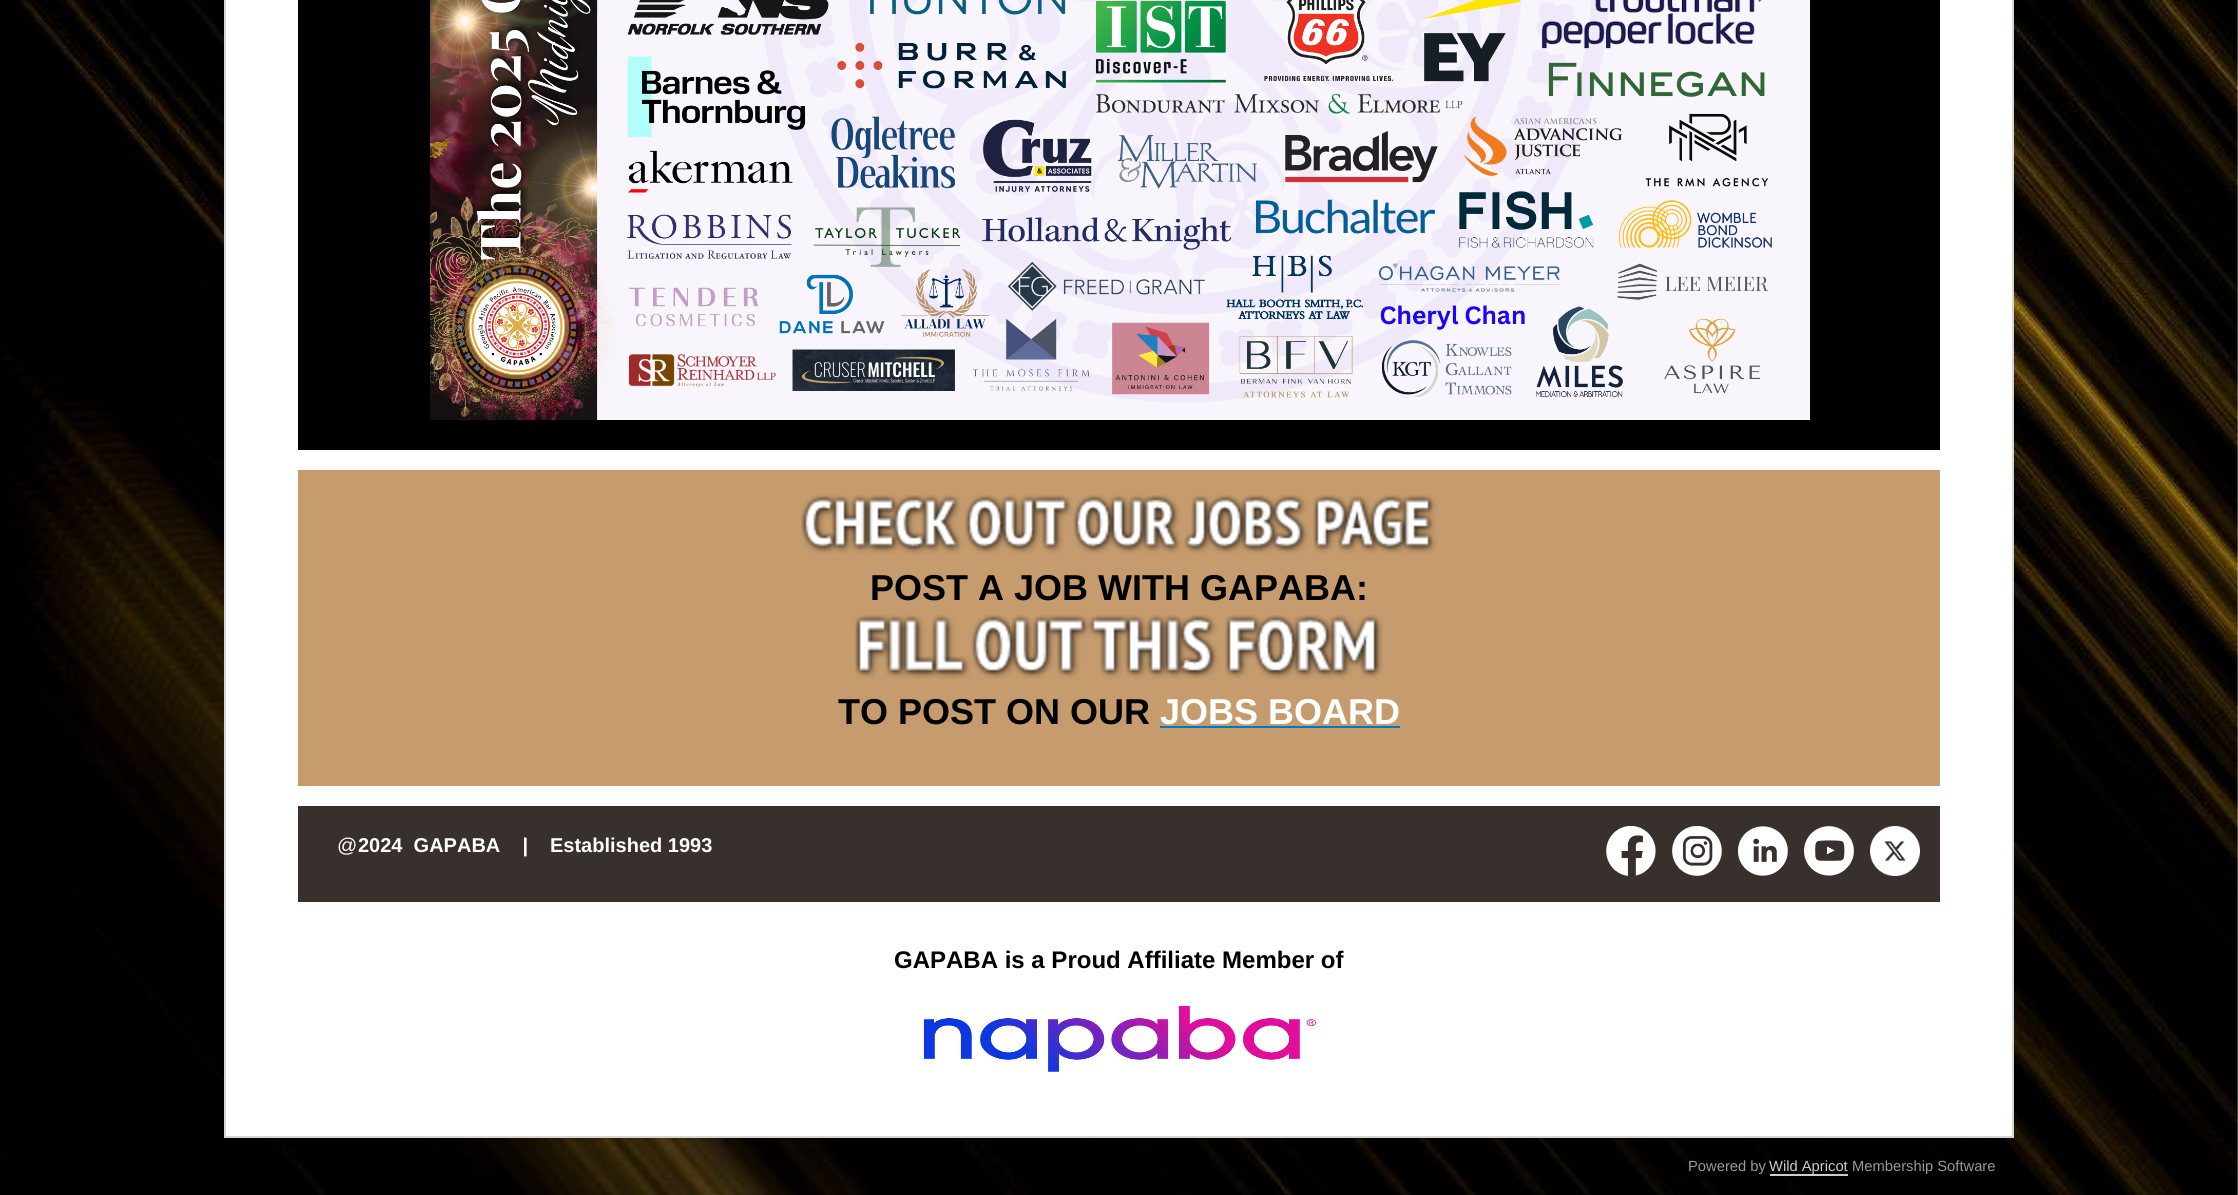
#include <cairo.h>
#include <math.h>
#include <stddef.h>


static void rgb(cairo_t *cr, int r, int g, int b)
{
	cairo_set_source_rgb(cr, r / 255.0, g / 255.0, b / 255.0);
}

static void face(cairo_t *cr, const char *family, double size, int italic, int bold)
{
	cairo_select_font_face(cr, family, italic ? CAIRO_FONT_SLANT_ITALIC : CAIRO_FONT_SLANT_NORMAL,
		bold ? CAIRO_FONT_WEIGHT_BOLD : CAIRO_FONT_WEIGHT_NORMAL);
	cairo_set_font_size(cr, size);
}

static void label(cairo_t *cr, double x, double y, const char *s)
{
	cairo_move_to(cr, x, y);
	cairo_show_text(cr, s);
}

static void rect(cairo_t *cr, double x, double y, double w, double h)
{
	cairo_rectangle(cr, x, y, w, h);
	cairo_fill(cr);
}

static void image(cairo_t *cr, const char *path, double x, double y, double w, double h)
{
	cairo_surface_t *image = cairo_image_surface_create_from_png(path);
	cairo_save(cr);
	cairo_set_source_surface(cr, image, x, y);
	cairo_rectangle(cr, x, y, w, h);
	cairo_fill(cr);
	cairo_restore(cr);
	cairo_surface_destroy(image);
}

static void draw(cairo_t *cr) {
	rgb(cr, 255, 255, 255);
	cairo_paint(cr);
	image(cr, "image0.png", 0, 0, 2238, 1195);
	rgb(cr, 255, 255, 255);
	cairo_rectangle(cr, 225, -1, 1788, 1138);
	cairo_fill_preserve(cr);
	rgb(cr, 214, 214, 214);
	cairo_stroke(cr);
	rgb(cr, 0, 0, 0);
	rect(cr, 298, 0, 1642, 450);
	image(cr, "image1.png", 430, 0, 1380, 420);
	rgb(cr, 198, 156, 110);
	rect(cr, 298, 470, 1642, 316);
	image(cr, "image2.png", 801, 495, 636, 60);
	face(cr, "Liberation Sans", 36, 0, 1);
	rgb(cr, 0, 0, 0);
	label(cr, 870, 600, "POST A JOB WITH GAPABA:");
	image(cr, "image3.png", 854, 615, 529, 64);
	label(cr, 838, 724, "TO POST ON OUR");
	rgb(cr, 255, 255, 255);
	label(cr, 1160, 724, "JOBS BOARD");
	rgb(cr, 0, 121, 194);
	rect(cr, 1160, 726, 240, 2);
	rgb(cr, 55, 48, 45);
	rect(cr, 298, 806, 1642, 96);
	face(cr, "Liberation Sans", 20, 0, 0);
	rgb(cr, 255, 255, 255);
	label(cr, 337, 852, "@");
	face(cr, "Liberation Sans", 20, 0, 1);
	label(cr, 358, 852, "2024  GAPABA    |");
	label(cr, 550, 852, "Established 1993");
	image(cr, "image4.png", 1606, 826, 50, 50);
	image(cr, "image5.png", 1672, 826, 50, 50);
	image(cr, "image6.png", 1738, 826, 50, 50);
	image(cr, "image7.png", 1804, 826, 50, 50);
	image(cr, "image8.png", 1870, 826, 50, 50);
	face(cr, "Liberation Sans", 24, 0, 1);
	rgb(cr, 0, 0, 0);
	label(cr, 894, 968, "GAPABA is a Proud Affiliate Member of");
	image(cr, "image9.png", 923, 1006, 393, 66);
	face(cr, "Liberation Sans", 14.75, 0, 0);
	rgb(cr, 153, 153, 153);
	label(cr, 1688, 1171, "Powered by");
	rgb(cr, 204, 204, 204);
	rect(cr, 1770, 1174, 78, 2);
	label(cr, 1769, 1171, "Wild Apricot");
	rgb(cr, 153, 153, 153);
	label(cr, 1852, 1171, "Membership Software");
}

int main(void) {
	cairo_surface_t *surface = cairo_image_surface_create(CAIRO_FORMAT_RGB24, 2238, 1195);
	cairo_t *cr = cairo_create(surface);
	cairo_font_options_t *options = cairo_font_options_create();
	cairo_font_options_set_hint_metrics(options, CAIRO_HINT_METRICS_OFF);
	cairo_font_options_set_hint_style(options, CAIRO_HINT_STYLE_NONE);
	cairo_set_font_options(cr, options);
	cairo_set_miter_limit(cr, 4);
	draw(cr);
	cairo_surface_write_to_png(surface, "render.png");
	cairo_font_options_destroy(options);
	cairo_destroy(cr);
	cairo_surface_destroy(surface);
	return 0;
}
